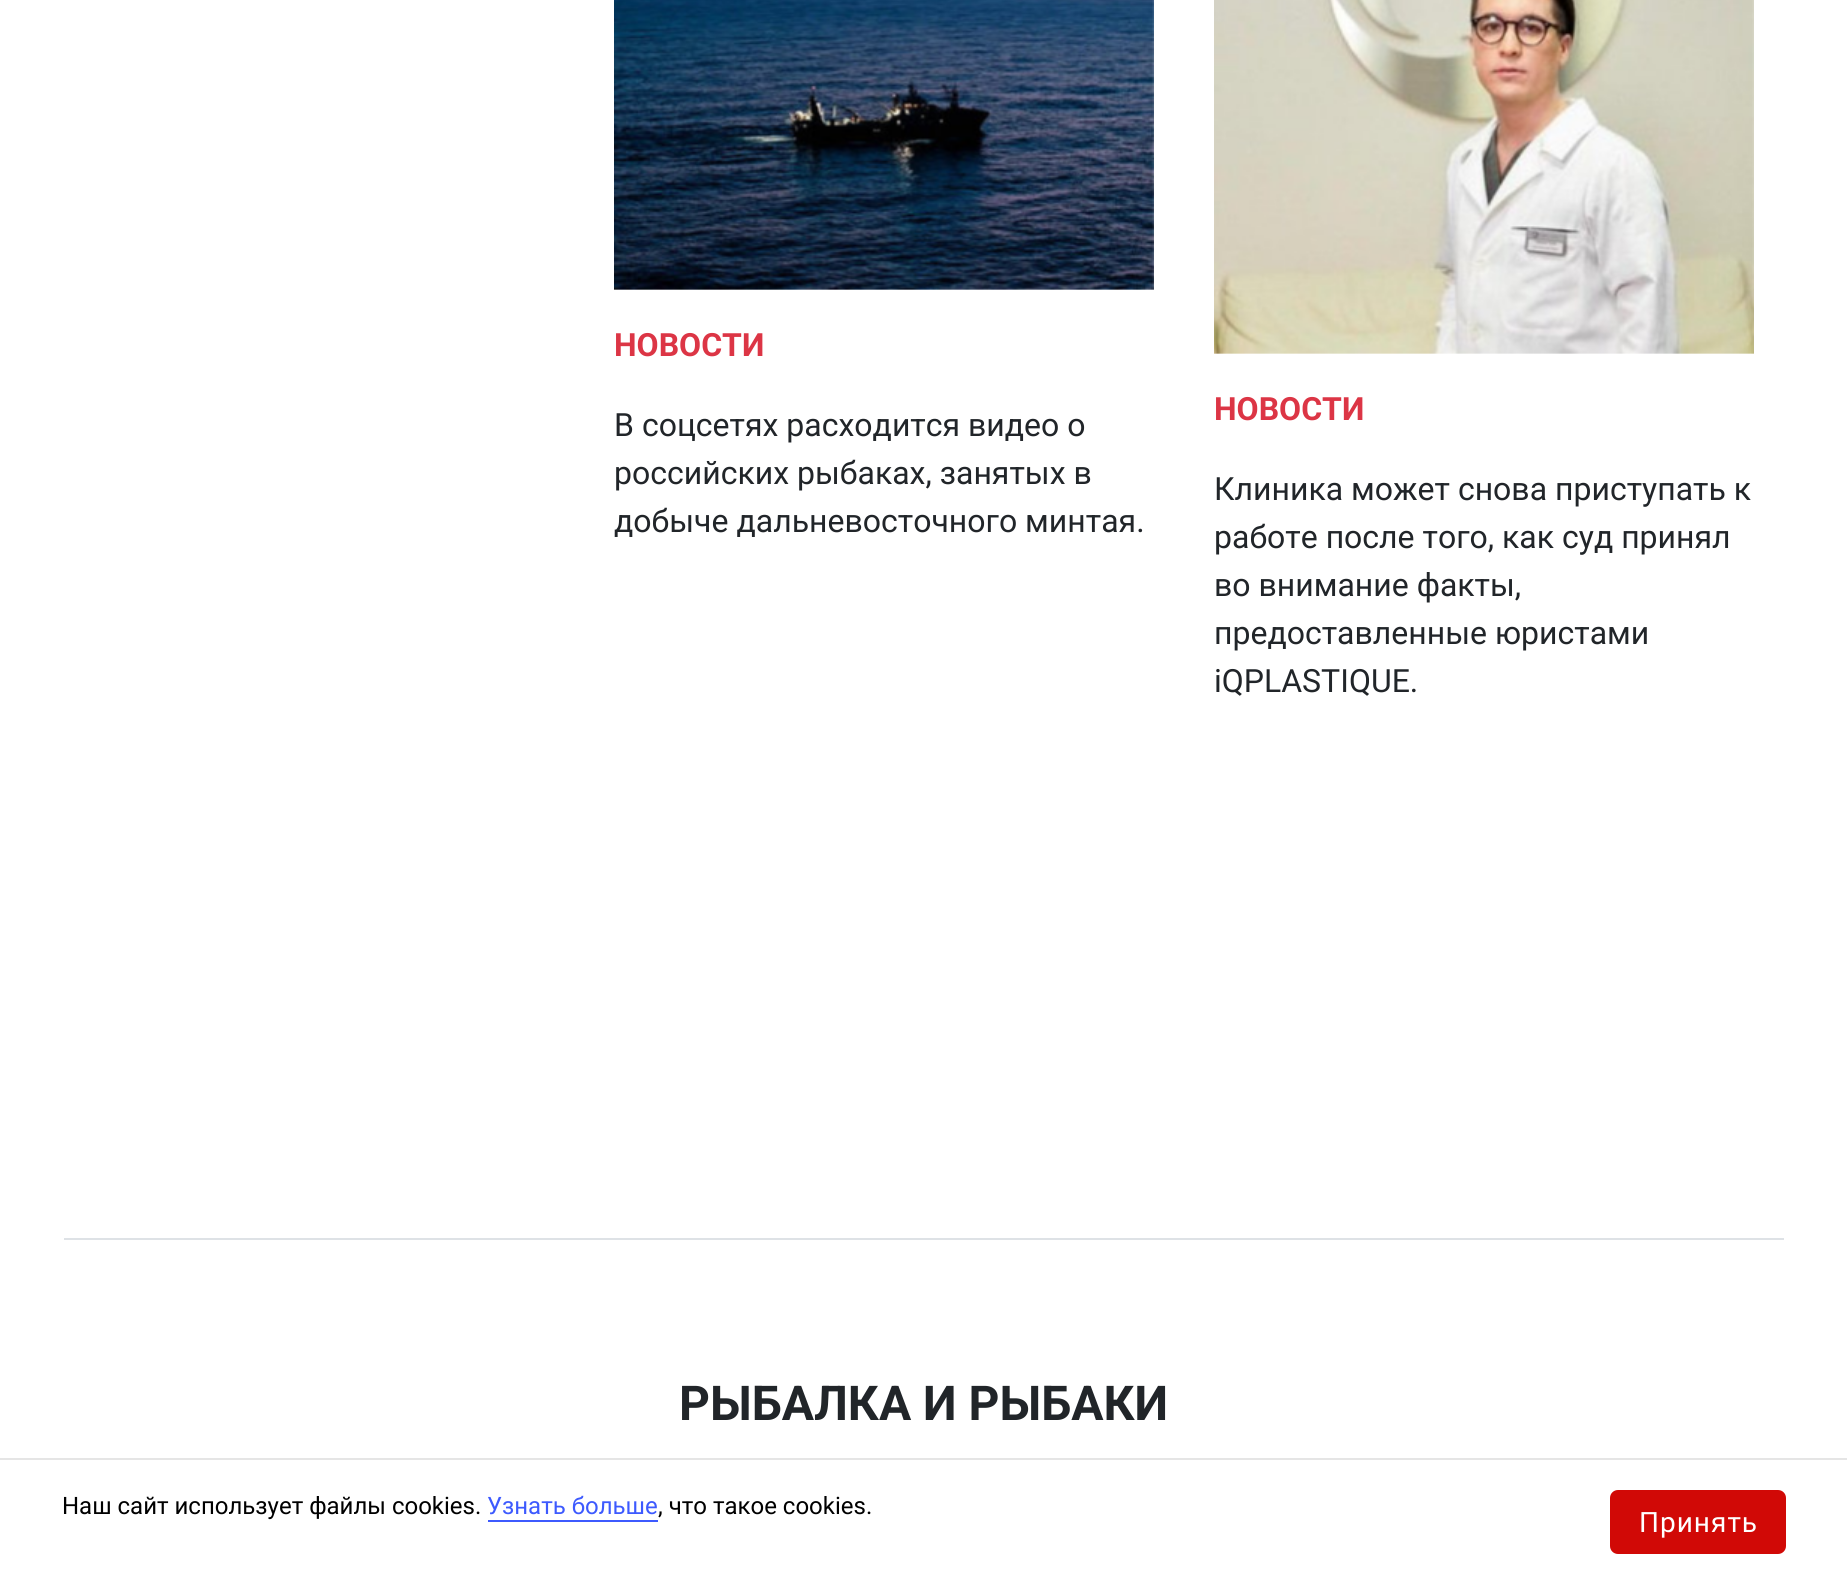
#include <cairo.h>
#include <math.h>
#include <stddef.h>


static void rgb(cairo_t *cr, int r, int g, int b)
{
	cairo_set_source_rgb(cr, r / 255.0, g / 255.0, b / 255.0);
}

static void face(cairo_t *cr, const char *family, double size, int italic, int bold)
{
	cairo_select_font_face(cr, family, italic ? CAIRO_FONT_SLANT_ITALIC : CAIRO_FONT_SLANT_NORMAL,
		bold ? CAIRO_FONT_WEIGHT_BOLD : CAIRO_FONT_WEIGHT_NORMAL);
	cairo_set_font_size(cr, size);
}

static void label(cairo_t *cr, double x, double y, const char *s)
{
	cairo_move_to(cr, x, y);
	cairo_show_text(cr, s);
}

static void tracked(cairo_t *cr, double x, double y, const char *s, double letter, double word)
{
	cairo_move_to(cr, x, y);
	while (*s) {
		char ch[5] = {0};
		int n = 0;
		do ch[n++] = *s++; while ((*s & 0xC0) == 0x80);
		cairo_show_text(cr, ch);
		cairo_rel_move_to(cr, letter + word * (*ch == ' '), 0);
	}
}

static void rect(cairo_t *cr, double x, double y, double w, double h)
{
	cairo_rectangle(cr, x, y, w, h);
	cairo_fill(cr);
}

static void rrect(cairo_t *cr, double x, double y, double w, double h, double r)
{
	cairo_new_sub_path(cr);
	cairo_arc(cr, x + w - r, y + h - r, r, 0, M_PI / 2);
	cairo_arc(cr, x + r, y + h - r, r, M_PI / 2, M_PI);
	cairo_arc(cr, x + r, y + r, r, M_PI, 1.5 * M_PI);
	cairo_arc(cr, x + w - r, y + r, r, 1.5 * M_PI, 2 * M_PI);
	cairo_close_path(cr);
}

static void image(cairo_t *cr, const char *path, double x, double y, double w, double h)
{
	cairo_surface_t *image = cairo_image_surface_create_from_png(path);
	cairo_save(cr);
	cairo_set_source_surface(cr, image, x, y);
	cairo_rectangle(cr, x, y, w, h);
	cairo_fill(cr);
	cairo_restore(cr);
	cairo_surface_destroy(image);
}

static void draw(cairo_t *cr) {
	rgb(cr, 255, 255, 255);
	cairo_paint(cr);
	image(cr, "image0.png", 614, 0, 540, 290);
	face(cr, "Roboto", 32, 0, 1);
	rgb(cr, 220, 53, 69);
	label(cr, 614, 356, "НОВОСТИ");
	face(cr, "Roboto", 32, 0, 0);
	rgb(cr, 33, 37, 41);
	label(cr, 614, 436, "В соцсетях расходится видео о");
	label(cr, 614, 484, "российских рыбаках, занятых в");
	label(cr, 614, 532, "добыче дальневосточного минтая.");
	image(cr, "image1.png", 1214, 0, 540, 354);
	face(cr, "Roboto", 32, 0, 1);
	rgb(cr, 220, 53, 69);
	label(cr, 1214, 420, "НОВОСТИ");
	face(cr, "Roboto", 32, 0, 0);
	rgb(cr, 33, 37, 41);
	label(cr, 1214, 500, "Клиника может снова приступать к");
	label(cr, 1214, 548, "работе после того, как суд принял");
	label(cr, 1214, 596, "во внимание факты,");
	label(cr, 1214, 644, "предоставленные юристами");
	label(cr, 1214, 692, "iQPLASTIQUE.");
	rgb(cr, 222, 226, 230);
	rect(cr, 64, 1238, 1720, 2);
	face(cr, "Roboto", 48, 0, 1);
	rgb(cr, 33, 37, 41);
	label(cr, 679, 1420, "РЫБАЛКА И РЫБАКИ");
	rgb(cr, 229, 229, 229);
	rect(cr, 0, 1458, 1847, 2);
	face(cr, "Roboto", 24, 0, 0);
	rgb(cr, 0, 0, 0);
	label(cr, 62, 1514, "Наш сайт использует файлы cookies.");
	rgb(cr, 61, 90, 254);
	label(cr, 487, 1514, "Узнать больше");
	rect(cr, 488, 1520, 170, 2);
	rgb(cr, 0, 0, 0);
	label(cr, 658, 1514, ", что такое cookies.");
	rgb(cr, 209, 9, 6);
	rrect(cr, 1610, 1490, 176, 64, 8);
	cairo_fill(cr);
	face(cr, "Roboto", 28, 0, 0);
	rgb(cr, 255, 255, 255);
	tracked(cr, 1639, 1532, "Принять", 1, 0);
}

int main(void) {
	cairo_surface_t *surface = cairo_image_surface_create(CAIRO_FORMAT_RGB24, 1847, 1584);
	cairo_t *cr = cairo_create(surface);
	cairo_font_options_t *options = cairo_font_options_create();
	cairo_font_options_set_hint_metrics(options, CAIRO_HINT_METRICS_OFF);
	cairo_font_options_set_hint_style(options, CAIRO_HINT_STYLE_NONE);
	cairo_set_font_options(cr, options);
	cairo_set_miter_limit(cr, 4);
	draw(cr);
	cairo_surface_write_to_png(surface, "render.png");
	cairo_font_options_destroy(options);
	cairo_destroy(cr);
	cairo_surface_destroy(surface);
	return 0;
}
